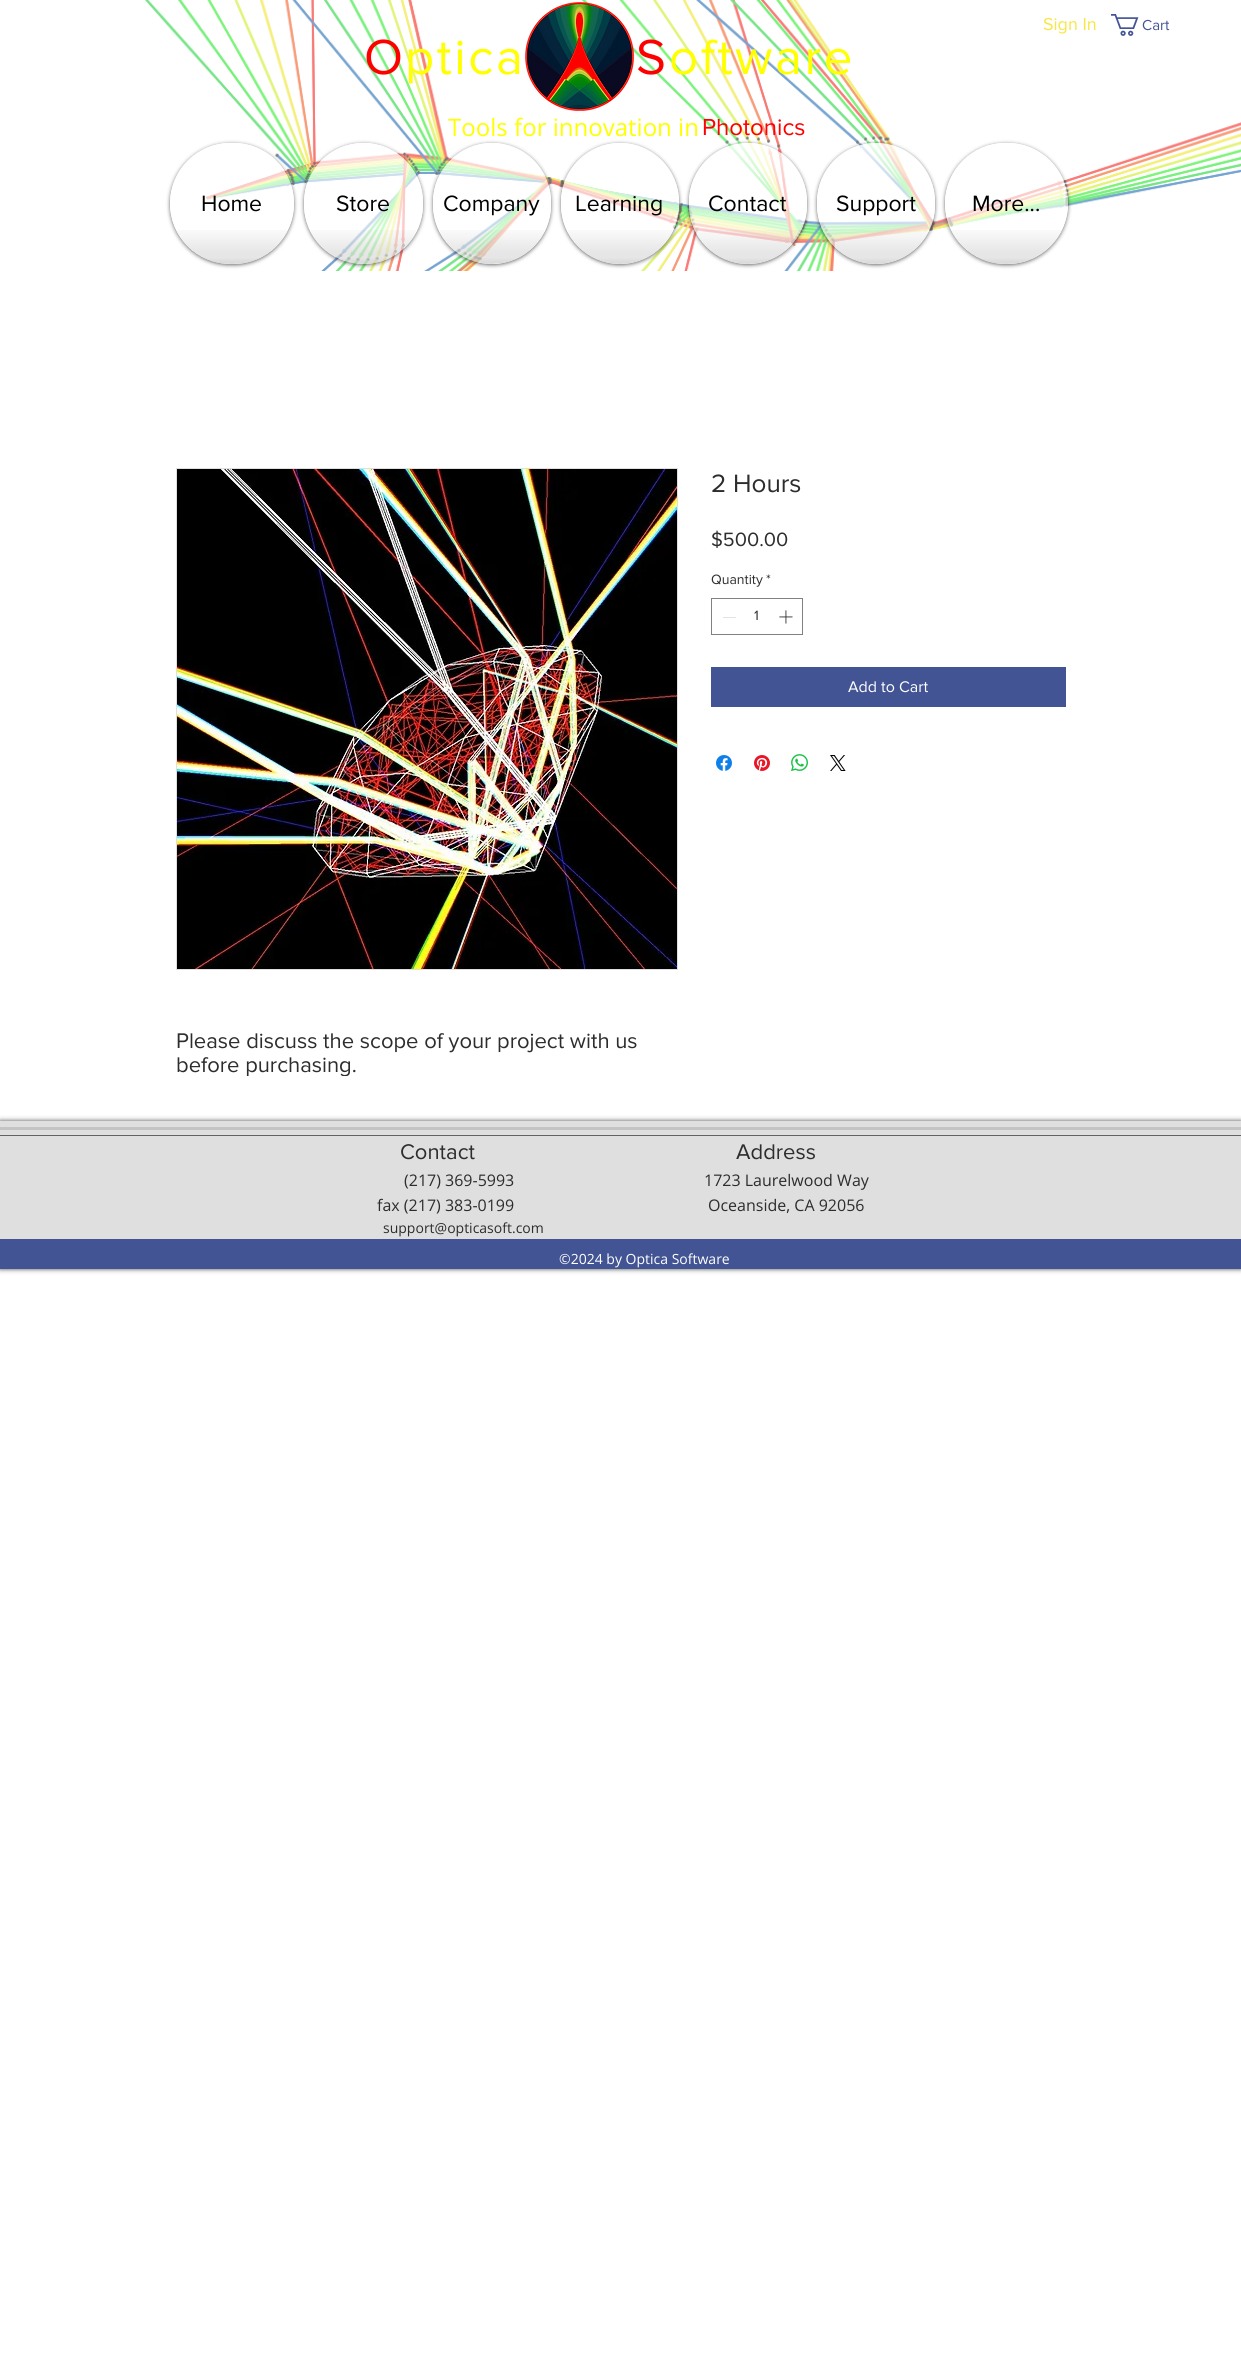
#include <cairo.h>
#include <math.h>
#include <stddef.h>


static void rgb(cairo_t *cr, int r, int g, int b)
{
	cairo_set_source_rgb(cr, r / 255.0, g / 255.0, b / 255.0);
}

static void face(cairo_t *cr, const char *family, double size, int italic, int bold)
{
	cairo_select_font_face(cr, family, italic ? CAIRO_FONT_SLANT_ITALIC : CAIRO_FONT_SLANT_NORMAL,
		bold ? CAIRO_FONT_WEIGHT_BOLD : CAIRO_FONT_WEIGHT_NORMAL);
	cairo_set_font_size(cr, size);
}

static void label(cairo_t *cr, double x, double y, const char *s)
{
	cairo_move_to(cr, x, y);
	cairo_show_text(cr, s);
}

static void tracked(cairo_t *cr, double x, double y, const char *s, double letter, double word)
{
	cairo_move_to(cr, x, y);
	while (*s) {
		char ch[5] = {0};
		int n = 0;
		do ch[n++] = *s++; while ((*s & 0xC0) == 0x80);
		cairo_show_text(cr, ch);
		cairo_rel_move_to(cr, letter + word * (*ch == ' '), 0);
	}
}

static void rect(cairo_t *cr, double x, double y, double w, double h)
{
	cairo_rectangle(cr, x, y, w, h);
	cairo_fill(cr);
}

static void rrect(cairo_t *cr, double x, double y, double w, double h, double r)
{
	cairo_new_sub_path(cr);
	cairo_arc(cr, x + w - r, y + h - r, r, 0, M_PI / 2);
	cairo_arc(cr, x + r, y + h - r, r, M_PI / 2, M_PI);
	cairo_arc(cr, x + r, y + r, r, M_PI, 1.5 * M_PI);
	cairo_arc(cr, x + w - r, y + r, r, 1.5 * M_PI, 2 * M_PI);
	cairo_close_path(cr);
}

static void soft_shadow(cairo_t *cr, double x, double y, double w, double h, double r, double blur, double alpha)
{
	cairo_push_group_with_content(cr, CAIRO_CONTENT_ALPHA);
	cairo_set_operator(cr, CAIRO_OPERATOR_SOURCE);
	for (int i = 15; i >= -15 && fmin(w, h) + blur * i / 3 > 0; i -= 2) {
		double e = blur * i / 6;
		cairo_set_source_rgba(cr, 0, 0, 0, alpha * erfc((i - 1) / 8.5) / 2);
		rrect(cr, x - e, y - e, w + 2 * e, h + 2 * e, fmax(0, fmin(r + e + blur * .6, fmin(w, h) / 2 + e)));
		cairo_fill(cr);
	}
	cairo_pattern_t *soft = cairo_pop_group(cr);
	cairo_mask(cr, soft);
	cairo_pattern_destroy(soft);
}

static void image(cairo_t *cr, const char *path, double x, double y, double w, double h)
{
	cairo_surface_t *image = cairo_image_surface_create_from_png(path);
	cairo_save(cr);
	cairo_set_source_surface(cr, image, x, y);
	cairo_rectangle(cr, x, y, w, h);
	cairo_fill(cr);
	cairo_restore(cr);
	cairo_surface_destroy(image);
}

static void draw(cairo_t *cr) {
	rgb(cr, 255, 255, 255);
	cairo_paint(cr);
	face(cr, "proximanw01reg", 18, 0, 0);
	rgb(cr, 248, 230, 68);
	label(cr, 1043, 30, "Sign In");
	image(cr, "image0.png", 145, 0, 1096, 271);
	image(cr, "image1.png", 1111, 14, 28, 22);
	face(cr, "proximanw01reg", 15, 0, 0);
	rgb(cr, 67, 84, 148);
	label(cr, 1142, 30, "Cart");
	image(cr, "image2.png", 525, 2, 109, 109);
	face(cr, "proximanw01reg", 51, 0, 0);
	rgb(cr, 255, 0, 0);
	tracked(cr, 364, 74, "O", 2.5, 0);
	rgb(cr, 255, 255, 0);
	tracked(cr, 405, 74, "ptica", 2.5, 0);
	rgb(cr, 255, 0, 0);
	tracked(cr, 636, 74, "S", 2.5, 0);
	rgb(cr, 255, 255, 0);
	tracked(cr, 669, 74, "oftware", 2.5, 0);
	face(cr, "Open Sans", 24, 0, 0);
	label(cr, 448, 136, "Tools for innovation in");
	face(cr, "proximanw01reg", 24, 0, 0);
	rgb(cr, 255, 0, 0);
	label(cr, 702, 135, "Photonics");
	cairo_save(cr);
	cairo_set_fill_rule(cr, CAIRO_FILL_RULE_EVEN_ODD);
	cairo_new_path(cr);
	cairo_move_to(cr, 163, 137);
	cairo_line_to(cr, 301, 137);
	cairo_line_to(cr, 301, 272);
	cairo_line_to(cr, 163, 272);
	cairo_close_path(cr);
	cairo_move_to(cr, 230.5, 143);
	cairo_line_to(cr, 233.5, 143);
	cairo_curve_to(cr, 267, 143, 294, 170, 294, 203.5);
	cairo_curve_to(cr, 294, 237, 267, 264, 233.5, 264);
	cairo_line_to(cr, 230.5, 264);
	cairo_curve_to(cr, 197, 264, 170, 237, 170, 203.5);
	cairo_curve_to(cr, 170, 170, 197, 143, 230.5, 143);
	cairo_close_path(cr);
	cairo_clip(cr);
	rgb(cr, 0, 0, 0);
	soft_shadow(cr, 170, 144, 124, 121, 60.5, 2, 0.6);
	cairo_restore(cr);
	cairo_set_source_rgba(cr, 1, 1, 1, 0.6);
	rrect(cr, 170, 143, 124, 121, 60.5);
	cairo_fill(cr);
	image(cr, "image3.png", 205, 143, 83, 35);
	image(cr, "image4.png", 177, 230, 110, 34);
	face(cr, "proximanw01reg", 23, 0, 0);
	rgb(cr, 0, 0, 0);
	label(cr, 201, 211, "Home");
	cairo_save(cr);
	cairo_set_fill_rule(cr, CAIRO_FILL_RULE_EVEN_ODD);
	cairo_new_path(cr);
	cairo_move_to(cr, 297, 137);
	cairo_line_to(cr, 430, 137);
	cairo_line_to(cr, 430, 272);
	cairo_line_to(cr, 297, 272);
	cairo_close_path(cr);
	cairo_move_to(cr, 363.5, 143);
	cairo_curve_to(cr, 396.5, 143, 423, 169.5, 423, 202.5);
	cairo_line_to(cr, 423, 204.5);
	cairo_curve_to(cr, 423, 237.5, 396.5, 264, 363.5, 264);
	cairo_curve_to(cr, 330.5, 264, 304, 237.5, 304, 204.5);
	cairo_line_to(cr, 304, 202.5);
	cairo_curve_to(cr, 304, 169.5, 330.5, 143, 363.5, 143);
	cairo_close_path(cr);
	cairo_clip(cr);
	rgb(cr, 0, 0, 0);
	soft_shadow(cr, 304, 144, 119, 121, 59.5, 2, 0.6);
	cairo_restore(cr);
	cairo_set_source_rgba(cr, 1, 1, 1, 0.6);
	rrect(cr, 304, 143, 119, 121, 59.5);
	cairo_fill(cr);
	image(cr, "image5.png", 310, 143, 106, 35);
	image(cr, "image6.png", 311, 230, 105, 34);
	rgb(cr, 0, 0, 0);
	label(cr, 336, 211, "Store");
	cairo_save(cr);
	cairo_set_fill_rule(cr, CAIRO_FILL_RULE_EVEN_ODD);
	cairo_new_path(cr);
	cairo_move_to(cr, 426, 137);
	cairo_line_to(cr, 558, 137);
	cairo_line_to(cr, 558, 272);
	cairo_line_to(cr, 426, 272);
	cairo_close_path(cr);
	cairo_move_to(cr, 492, 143);
	cairo_curve_to(cr, 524.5, 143, 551, 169.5, 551, 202);
	cairo_line_to(cr, 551, 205);
	cairo_curve_to(cr, 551, 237.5, 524.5, 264, 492, 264);
	cairo_curve_to(cr, 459.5, 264, 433, 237.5, 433, 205);
	cairo_line_to(cr, 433, 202);
	cairo_curve_to(cr, 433, 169.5, 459.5, 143, 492, 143);
	cairo_close_path(cr);
	cairo_clip(cr);
	rgb(cr, 0, 0, 0);
	soft_shadow(cr, 433, 144, 118, 121, 59, 2, 0.6);
	cairo_restore(cr);
	cairo_set_source_rgba(cr, 1, 1, 1, 0.6);
	rrect(cr, 433, 143, 118, 121, 59);
	cairo_fill(cr);
	image(cr, "image7.png", 440, 143, 105, 35);
	image(cr, "image8.png", 440, 230, 104, 34);
	rgb(cr, 0, 0, 0);
	label(cr, 443, 211, "Company");
	cairo_save(cr);
	cairo_set_fill_rule(cr, CAIRO_FILL_RULE_EVEN_ODD);
	cairo_new_path(cr);
	cairo_move_to(cr, 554, 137);
	cairo_line_to(cr, 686, 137);
	cairo_line_to(cr, 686, 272);
	cairo_line_to(cr, 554, 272);
	cairo_close_path(cr);
	cairo_move_to(cr, 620, 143);
	cairo_curve_to(cr, 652.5, 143, 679, 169.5, 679, 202);
	cairo_line_to(cr, 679, 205);
	cairo_curve_to(cr, 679, 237.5, 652.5, 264, 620, 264);
	cairo_curve_to(cr, 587.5, 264, 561, 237.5, 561, 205);
	cairo_line_to(cr, 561, 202);
	cairo_curve_to(cr, 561, 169.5, 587.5, 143, 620, 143);
	cairo_close_path(cr);
	cairo_clip(cr);
	rgb(cr, 0, 0, 0);
	soft_shadow(cr, 561, 144, 118, 121, 59, 2, 0.6);
	cairo_restore(cr);
	cairo_set_source_rgba(cr, 1, 1, 1, 0.6);
	rrect(cr, 561, 143, 118, 121, 59);
	cairo_fill(cr);
	image(cr, "image9.png", 600, 143, 38, 4);
	image(cr, "image10.png", 568, 230, 104, 34);
	rgb(cr, 0, 0, 0);
	label(cr, 575, 211, "Learning");
	cairo_save(cr);
	cairo_set_fill_rule(cr, CAIRO_FILL_RULE_EVEN_ODD);
	cairo_new_path(cr);
	cairo_move_to(cr, 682, 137);
	cairo_line_to(cr, 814, 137);
	cairo_line_to(cr, 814, 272);
	cairo_line_to(cr, 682, 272);
	cairo_close_path(cr);
	cairo_move_to(cr, 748, 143);
	cairo_curve_to(cr, 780.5, 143, 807, 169.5, 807, 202);
	cairo_line_to(cr, 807, 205);
	cairo_curve_to(cr, 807, 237.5, 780.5, 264, 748, 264);
	cairo_curve_to(cr, 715.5, 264, 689, 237.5, 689, 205);
	cairo_line_to(cr, 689, 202);
	cairo_curve_to(cr, 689, 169.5, 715.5, 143, 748, 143);
	cairo_close_path(cr);
	cairo_clip(cr);
	rgb(cr, 0, 0, 0);
	soft_shadow(cr, 689, 144, 118, 121, 59, 2, 0.6);
	cairo_restore(cr);
	cairo_set_source_rgba(cr, 1, 1, 1, 0.6);
	rrect(cr, 689, 143, 118, 121, 59);
	cairo_fill(cr);
	image(cr, "image11.png", 728, 143, 56, 35);
	image(cr, "image12.png", 696, 230, 104, 34);
	rgb(cr, 0, 0, 0);
	label(cr, 708, 211, "Contact");
	cairo_save(cr);
	cairo_set_fill_rule(cr, CAIRO_FILL_RULE_EVEN_ODD);
	cairo_new_path(cr);
	cairo_move_to(cr, 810, 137);
	cairo_line_to(cr, 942, 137);
	cairo_line_to(cr, 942, 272);
	cairo_line_to(cr, 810, 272);
	cairo_close_path(cr);
	cairo_move_to(cr, 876, 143);
	cairo_curve_to(cr, 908.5, 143, 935, 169.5, 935, 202);
	cairo_line_to(cr, 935, 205);
	cairo_curve_to(cr, 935, 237.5, 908.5, 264, 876, 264);
	cairo_curve_to(cr, 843.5, 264, 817, 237.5, 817, 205);
	cairo_line_to(cr, 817, 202);
	cairo_curve_to(cr, 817, 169.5, 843.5, 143, 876, 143);
	cairo_close_path(cr);
	cairo_clip(cr);
	rgb(cr, 0, 0, 0);
	soft_shadow(cr, 817, 144, 118, 121, 59, 2, 0.6);
	cairo_restore(cr);
	cairo_set_source_rgba(cr, 1, 1, 1, 0.6);
	rrect(cr, 817, 143, 118, 121, 59);
	cairo_fill(cr);
	image(cr, "image13.png", 856, 143, 51, 35);
	image(cr, "image14.png", 824, 230, 104, 34);
	rgb(cr, 0, 0, 0);
	label(cr, 836, 211, "Support");
	cairo_save(cr);
	cairo_set_fill_rule(cr, CAIRO_FILL_RULE_EVEN_ODD);
	cairo_new_path(cr);
	cairo_move_to(cr, 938, 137);
	cairo_line_to(cr, 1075, 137);
	cairo_line_to(cr, 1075, 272);
	cairo_line_to(cr, 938, 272);
	cairo_close_path(cr);
	cairo_move_to(cr, 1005.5, 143);
	cairo_line_to(cr, 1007.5, 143);
	cairo_curve_to(cr, 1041, 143, 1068, 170, 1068, 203.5);
	cairo_curve_to(cr, 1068, 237, 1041, 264, 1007.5, 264);
	cairo_line_to(cr, 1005.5, 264);
	cairo_curve_to(cr, 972, 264, 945, 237, 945, 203.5);
	cairo_curve_to(cr, 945, 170, 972, 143, 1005.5, 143);
	cairo_close_path(cr);
	cairo_clip(cr);
	rgb(cr, 0, 0, 0);
	soft_shadow(cr, 945, 144, 123, 121, 60.5, 2, 0.6);
	cairo_restore(cr);
	cairo_set_source_rgba(cr, 1, 1, 1, 0.6);
	rrect(cr, 945, 143, 123, 121, 60.5);
	cairo_fill(cr);
	image(cr, "image15.png", 980, 143, 51, 6);
	image(cr, "image16.png", 952, 230, 109, 34);
	rgb(cr, 0, 0, 0);
	label(cr, 972, 211, "More...");
	face(cr, "proximanw01reg", 26, 0, 0);
	rgb(cr, 45, 45, 45);
	label(cr, 711, 492, "2 Hours");
	face(cr, "proximanw01reg", 20, 0, 0);
	label(cr, 711, 546, "$500.00");
	face(cr, "proximanw01reg", 14, 0, 0);
	label(cr, 711, 584, "Quantity");
	label(cr, 766, 584, "*");
	cairo_rectangle(cr, 711.5, 598.5, 91, 36);
	rgb(cr, 129, 129, 129);
	cairo_set_line_width(cr, 1);
	cairo_stroke(cr);
	rgb(cr, 227, 227, 227);
	rect(cr, 723, 617, 13, 1);
	rgb(cr, 45, 45, 45);
	label(cr, 754, 620, "1");
	image(cr, "image17.png", 779, 610, 14, 14);
	rgb(cr, 67, 84, 148);
	rect(cr, 711, 667, 355, 40);
	face(cr, "proximanw01reg", 16, 0, 0);
	rgb(cr, 255, 255, 255);
	label(cr, 848, 692, "Add to Cart");
	image(cr, "image18.png", 716, 755, 16, 16);
	image(cr, "image19.png", 754, 755, 16, 16);
	image(cr, "image20.png", 791, 754, 17, 17);
	image(cr, "image21.png", 830, 755, 16, 16);
	cairo_rectangle(cr, 176.5, 468.5, 501, 501);
	rgb(cr, 223, 223, 223);
	cairo_stroke(cr);
	image(cr, "image22.png", 177, 469, 500, 500);
	face(cr, "proximanw01reg", 22, 0, 0);
	rgb(cr, 45, 45, 45);
	label(cr, 176, 1048, "Please discuss the scope of your project with us");
	cairo_save(cr);
	cairo_rectangle(cr, 176, 1028, 500, 48);
	cairo_clip(cr);
	label(cr, 176, 1072, "before purchasing.");
	cairo_restore(cr);
	rgb(cr, 0, 0, 0);
	soft_shadow(cr, 0, 1121, 1241, 148, 0, 2.5, 0.7);
	rgb(cr, 223, 223, 223);
	rect(cr, 0, 1121, 1241, 118);
	rgb(cr, 196, 196, 196);
	rect(cr, 0, 1127, 1241, 3);
	rgb(cr, 99, 97, 97);
	rect(cr, 0, 1135, 1241, 1);
	rgb(cr, 45, 45, 45);
	label(cr, 400, 1159, "Contact");
	label(cr, 736, 1159, "Address");
	face(cr, "Open Sans", 16, 0, 0);
	label(cr, 404, 1186, "(217) 369-5993");
	label(cr, 377, 1211, "fax (217) 383-0199");
	label(cr, 704, 1186, "1723 Laurelwood Way");
	label(cr, 708, 1211, "Oceanside, CA 92056");
	face(cr, "Open Sans", 14, 0, 0);
	label(cr, 383, 1233, "support@opticasoft.com");
	rgb(cr, 67, 84, 148);
	rect(cr, 0, 1239, 1241, 30);
	rgb(cr, 255, 255, 255);
	label(cr, 559, 1264, "©2024 by Optica Software");
}

int main(void) {
	cairo_surface_t *surface = cairo_image_surface_create(CAIRO_FORMAT_RGB24, 1241, 2370);
	cairo_t *cr = cairo_create(surface);
	cairo_font_options_t *options = cairo_font_options_create();
	cairo_font_options_set_hint_metrics(options, CAIRO_HINT_METRICS_OFF);
	cairo_font_options_set_hint_style(options, CAIRO_HINT_STYLE_NONE);
	cairo_set_font_options(cr, options);
	cairo_set_miter_limit(cr, 4);
	draw(cr);
	cairo_surface_write_to_png(surface, "render.png");
	cairo_font_options_destroy(options);
	cairo_destroy(cr);
	cairo_surface_destroy(surface);
	return 0;
}
